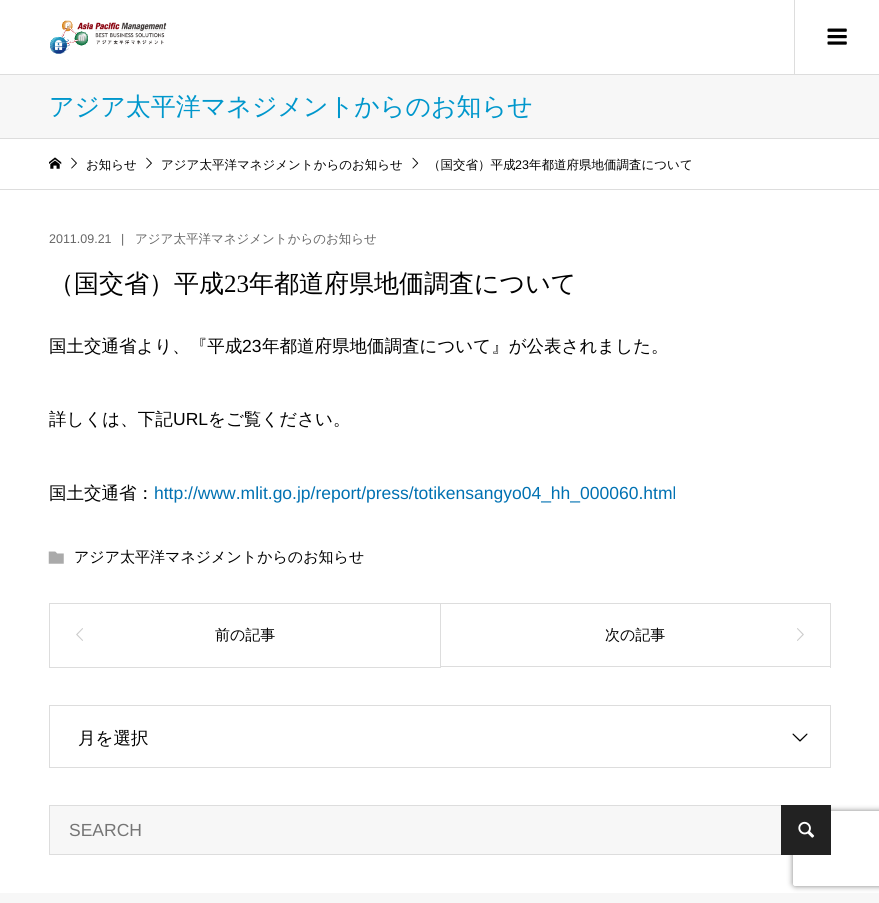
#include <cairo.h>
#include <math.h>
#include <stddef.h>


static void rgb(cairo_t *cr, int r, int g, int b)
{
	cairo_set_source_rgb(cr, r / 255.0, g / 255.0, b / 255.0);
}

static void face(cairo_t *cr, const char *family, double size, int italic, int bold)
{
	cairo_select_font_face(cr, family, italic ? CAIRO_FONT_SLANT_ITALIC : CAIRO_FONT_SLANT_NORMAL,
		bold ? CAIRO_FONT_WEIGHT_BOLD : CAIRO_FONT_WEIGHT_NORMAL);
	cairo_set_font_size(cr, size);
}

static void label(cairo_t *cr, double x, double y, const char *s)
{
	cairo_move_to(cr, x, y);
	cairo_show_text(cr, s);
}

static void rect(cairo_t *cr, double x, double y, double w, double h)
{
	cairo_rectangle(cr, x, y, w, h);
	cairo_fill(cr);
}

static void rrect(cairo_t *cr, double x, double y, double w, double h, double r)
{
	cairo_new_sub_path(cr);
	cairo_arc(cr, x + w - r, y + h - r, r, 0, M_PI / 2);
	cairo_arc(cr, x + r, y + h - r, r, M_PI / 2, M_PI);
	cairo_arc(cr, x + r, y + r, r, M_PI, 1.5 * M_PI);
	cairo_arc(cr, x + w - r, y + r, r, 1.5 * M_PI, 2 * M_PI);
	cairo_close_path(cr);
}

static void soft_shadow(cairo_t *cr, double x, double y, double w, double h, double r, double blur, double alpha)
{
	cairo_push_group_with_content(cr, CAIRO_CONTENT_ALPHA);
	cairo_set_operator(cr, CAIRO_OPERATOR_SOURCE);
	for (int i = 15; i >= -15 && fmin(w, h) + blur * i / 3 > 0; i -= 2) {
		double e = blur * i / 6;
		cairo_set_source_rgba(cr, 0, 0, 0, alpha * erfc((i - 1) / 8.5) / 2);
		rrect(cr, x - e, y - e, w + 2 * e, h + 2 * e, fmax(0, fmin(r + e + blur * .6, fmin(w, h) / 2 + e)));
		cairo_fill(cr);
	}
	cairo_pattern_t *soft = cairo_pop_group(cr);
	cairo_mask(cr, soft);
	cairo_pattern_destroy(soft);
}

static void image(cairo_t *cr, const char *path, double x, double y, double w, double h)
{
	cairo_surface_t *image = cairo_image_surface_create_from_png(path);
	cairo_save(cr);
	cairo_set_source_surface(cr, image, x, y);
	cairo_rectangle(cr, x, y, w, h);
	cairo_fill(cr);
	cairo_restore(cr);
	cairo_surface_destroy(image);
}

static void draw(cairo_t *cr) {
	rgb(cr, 255, 255, 255);
	cairo_paint(cr);
	rgb(cr, 221, 221, 221);
	rect(cr, 0, 74, 879, 1);
	image(cr, "image0.png", 50, 20, 117, 34);
	rect(cr, 794, 0, 1, 74);
	image(cr, "image1.png", 827, 28, 20, 17);
	rgb(cr, 247, 247, 247);
	rect(cr, 0, 75, 879, 63);
	rgb(cr, 221, 221, 221);
	rect(cr, 0, 138, 879, 1);
	face(cr, "WenQuanYi Zen Hei Medium", 25, 0, 0);
	rgb(cr, 0, 151, 204);
	label(cr, 49, 115, "アジア太平洋マネジメントからのお知らせ");
	rgb(cr, 221, 221, 221);
	rect(cr, 0, 189, 879, 1);
	image(cr, "image2.png", 49, 157, 13, 12);
	image(cr, "image3.png", 71, 157, 6, 12);
	face(cr, "WenQuanYi Zen Hei Medium", 12.5, 0, 0);
	rgb(cr, 0, 0, 0);
	label(cr, 86, 169, "お知らせ");
	image(cr, "image3.png", 146, 157, 6, 12);
	label(cr, 161, 169, "アジア太平洋マネジメントからのお知らせ");
	image(cr, "image4.png", 412, 157, 7, 12);
	label(cr, 428, 169, "（国交省）平成");
	face(cr, "Liberation Sans", 12.5, 0, 0);
	label(cr, 515, 169, "23");
	face(cr, "WenQuanYi Zen Hei Medium", 12.5, 0, 0);
	label(cr, 529, 169, "年都道府県地価調査について");
	face(cr, "Liberation Sans", 12.5, 0, 0);
	rgb(cr, 102, 102, 102);
	label(cr, 49, 243, "2011.09.21");
	label(cr, 121, 243, "|");
	face(cr, "WenQuanYi Zen Hei Medium", 12.5, 0, 0);
	label(cr, 135, 243, "アジア太平洋マネジメントからのお知らせ");
	face(cr, "WenQuanYi Zen Hei Medium", 25, 0, 0);
	rgb(cr, 0, 0, 0);
	label(cr, 49, 292, "（国交省）平成");
	face(cr, "Liberation Serif", 25, 0, 0);
	label(cr, 224, 292, "23");
	face(cr, "WenQuanYi Zen Hei Medium", 25, 0, 0);
	label(cr, 249, 292, "年都道府県地価調査について");
	face(cr, "WenQuanYi Zen Hei Medium", 17.5, 0, 0);
	label(cr, 49, 352, "国土交通省より、『平成");
	face(cr, "Liberation Sans", 17.5, 0, 0);
	label(cr, 242, 352, "23");
	face(cr, "WenQuanYi Zen Hei Medium", 17.5, 0, 0);
	label(cr, 262, 352, "年都道府県地価調査について』が公表されました。");
	label(cr, 49, 425, "詳しくは、下記");
	face(cr, "Liberation Sans", 17.5, 0, 0);
	label(cr, 173, 425, "URL");
	face(cr, "WenQuanYi Zen Hei Medium", 17.5, 0, 0);
	label(cr, 208, 425, "をご覧ください。");
	label(cr, 49, 499, "国土交通省：");
	face(cr, "Liberation Sans", 17.5, 0, 0);
	rgb(cr, 0, 113, 178);
	label(cr, 154, 499, "http://www.mlit.go.jp/report/press/totikensangyo04_hh_000060.html");
	image(cr, "image5.png", 48, 551, 16, 13);
	face(cr, "WenQuanYi Zen Hei Medium", 15, 0, 0);
	rgb(cr, 0, 0, 0);
	label(cr, 74, 562, "アジア太平洋マネジメントからのお知らせ");
	cairo_rectangle(cr, 49.5, 603.5, 391, 64);
	rgb(cr, 221, 221, 221);
	cairo_set_line_width(cr, 1);
	cairo_stroke(cr);
	image(cr, "image6.png", 76, 628, 7, 13);
	rgb(cr, 0, 0, 0);
	label(cr, 215, 640, "前の記事");
	rgb(cr, 221, 221, 221);
	rect(cr, 441, 603, 390, 1);
	rect(cr, 830, 603, 1, 65);
	rect(cr, 441, 666, 390, 1);
	rgb(cr, 0, 0, 0);
	label(cr, 605, 640, "次の記事");
	image(cr, "image7.png", 797, 628, 7, 13);
	cairo_rectangle(cr, 49.5, 705.5, 781, 62);
	rgb(cr, 221, 221, 221);
	cairo_stroke(cr);
	face(cr, "WenQuanYi Zen Hei Medium", 17.5, 0, 0);
	rgb(cr, 0, 0, 0);
	label(cr, 78, 744, "月を選択");
	image(cr, "image8.png", 792, 733, 16, 9);
	rgb(cr, 247, 247, 247);
	rect(cr, 50, 806, 731, 48);
	rgb(cr, 221, 221, 221);
	rect(cr, 49, 805, 732, 1);
	rect(cr, 49, 854, 732, 1);
	rect(cr, 49, 805, 1, 50);
	face(cr, "Liberation Sans", 17.5, 0, 0);
	rgb(cr, 117, 117, 117);
	label(cr, 69, 836, "SEARCH");
	rgb(cr, 247, 247, 247);
	rect(cr, 0, 893, 879, 10);
	cairo_save(cr);
	cairo_set_fill_rule(cr, CAIRO_FILL_RULE_EVEN_ODD);
	cairo_new_path(cr);
	cairo_move_to(cr, 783, 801);
	cairo_line_to(cr, 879, 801);
	cairo_line_to(cr, 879, 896);
	cairo_line_to(cr, 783, 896);
	cairo_close_path(cr);
	cairo_move_to(cr, 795.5, 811);
	cairo_line_to(cr, 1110.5, 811);
	cairo_curve_to(cr, 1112, 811, 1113, 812, 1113, 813.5);
	cairo_line_to(cr, 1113, 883.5);
	cairo_curve_to(cr, 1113, 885, 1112, 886, 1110.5, 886);
	cairo_line_to(cr, 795.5, 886);
	cairo_curve_to(cr, 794, 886, 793, 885, 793, 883.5);
	cairo_line_to(cr, 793, 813.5);
	cairo_curve_to(cr, 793, 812, 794, 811, 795.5, 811);
	cairo_close_path(cr);
	cairo_clip(cr);
	rgb(cr, 128, 128, 128);
	soft_shadow(cr, 793, 811, 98, 75, 2.5, 3, 1);
	cairo_restore(cr);
	rgb(cr, 34, 34, 34);
	rect(cr, 781, 805, 50, 50);
	image(cr, "image9.png", 798, 821, 17, 17);
}

int main(void) {
	cairo_surface_t *surface = cairo_image_surface_create(CAIRO_FORMAT_RGB24, 879, 903);
	cairo_t *cr = cairo_create(surface);
	cairo_font_options_t *options = cairo_font_options_create();
	cairo_font_options_set_hint_metrics(options, CAIRO_HINT_METRICS_OFF);
	cairo_font_options_set_hint_style(options, CAIRO_HINT_STYLE_NONE);
	cairo_set_font_options(cr, options);
	cairo_set_miter_limit(cr, 4);
	draw(cr);
	cairo_surface_write_to_png(surface, "render.png");
	cairo_font_options_destroy(options);
	cairo_destroy(cr);
	cairo_surface_destroy(surface);
	return 0;
}
